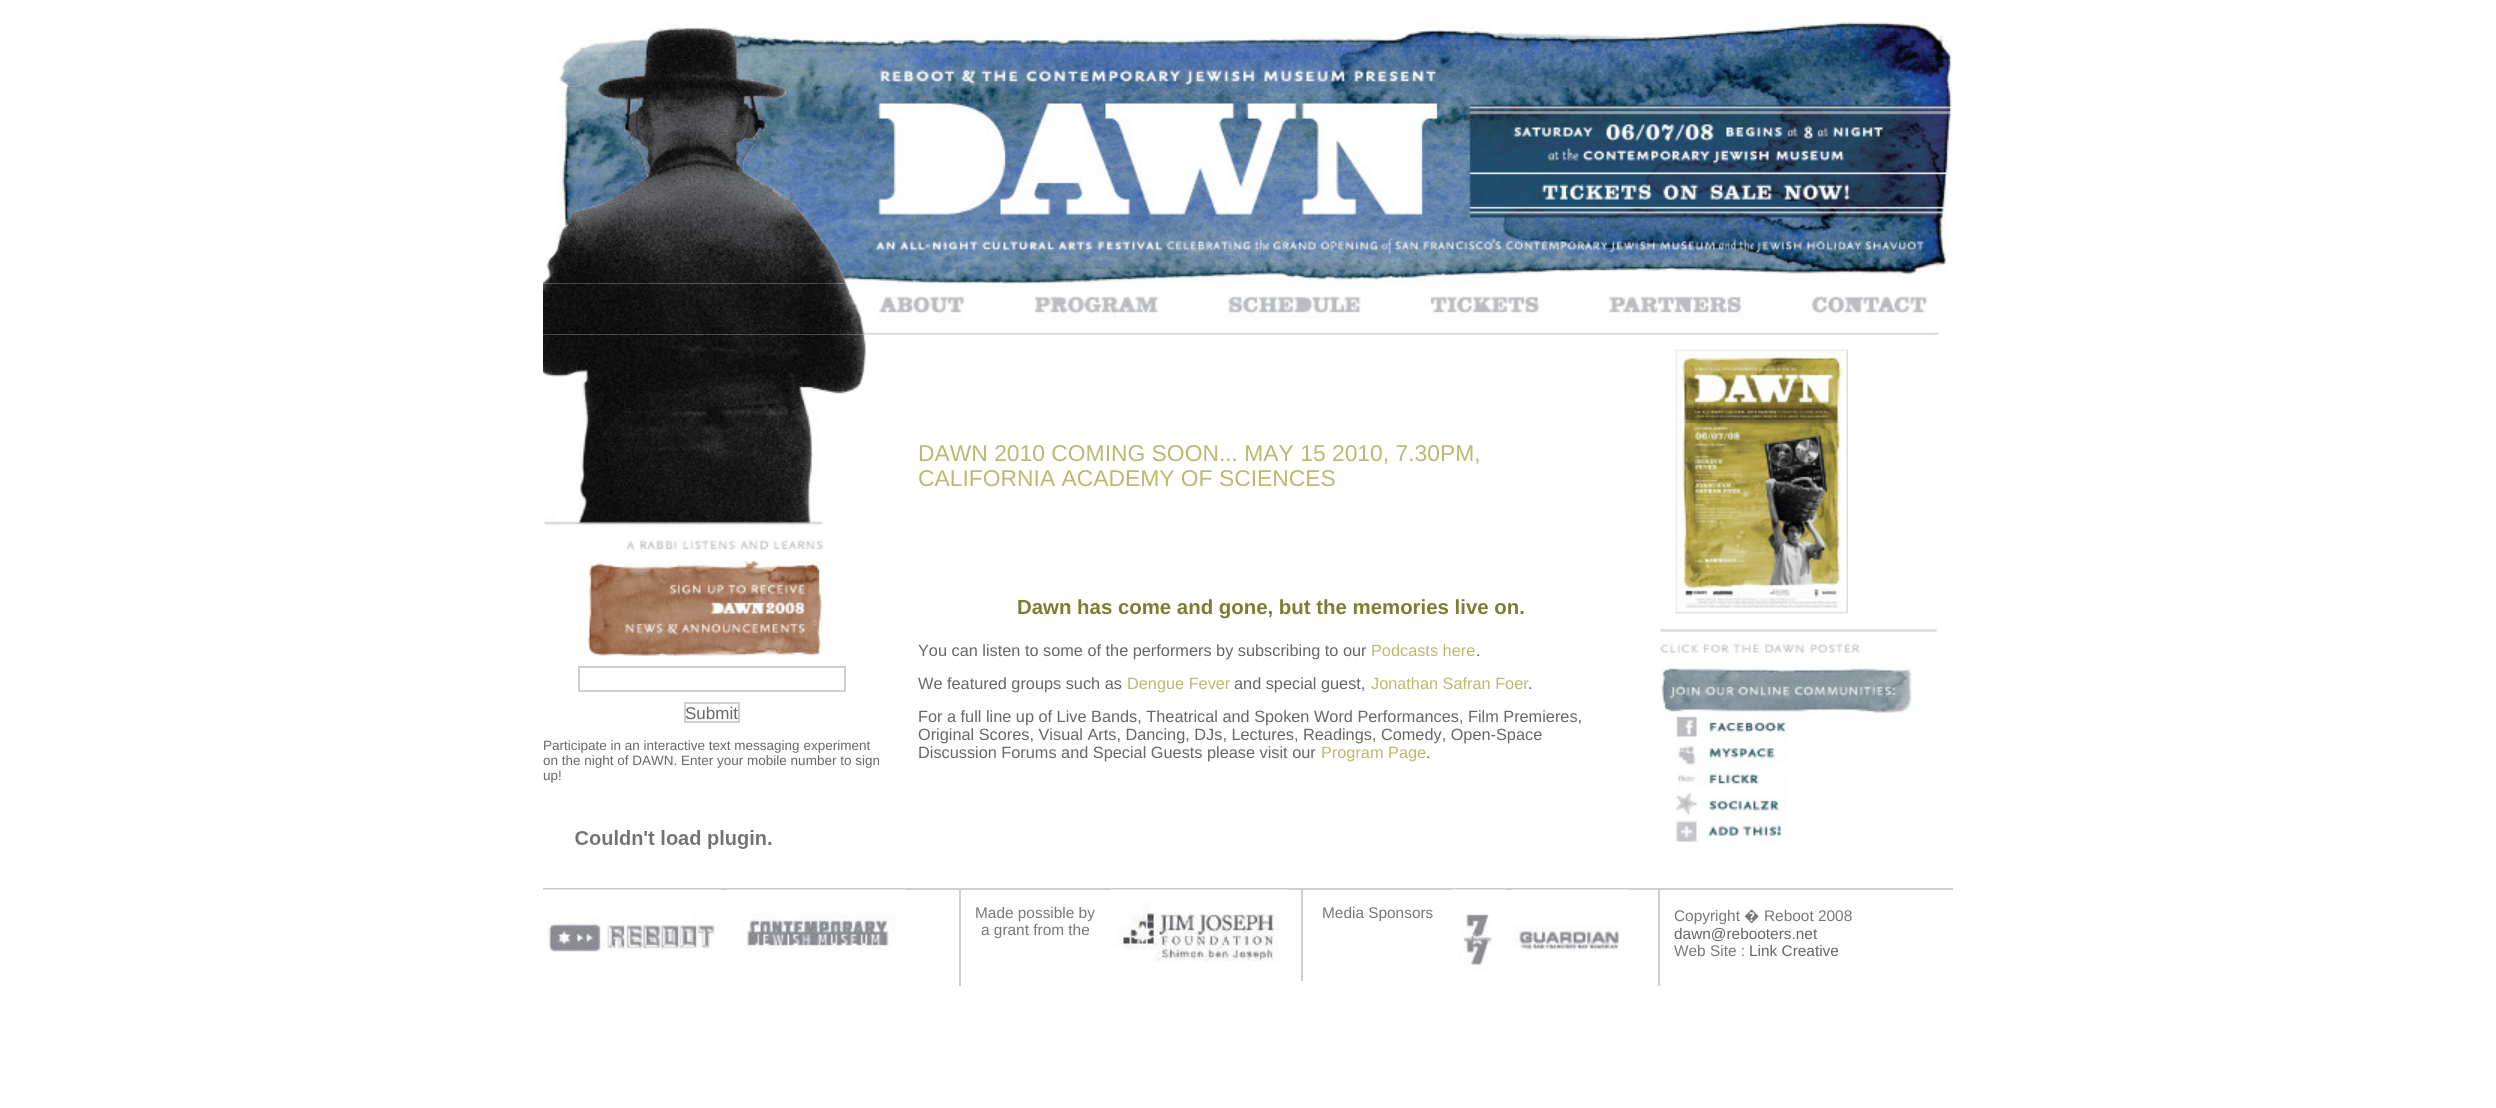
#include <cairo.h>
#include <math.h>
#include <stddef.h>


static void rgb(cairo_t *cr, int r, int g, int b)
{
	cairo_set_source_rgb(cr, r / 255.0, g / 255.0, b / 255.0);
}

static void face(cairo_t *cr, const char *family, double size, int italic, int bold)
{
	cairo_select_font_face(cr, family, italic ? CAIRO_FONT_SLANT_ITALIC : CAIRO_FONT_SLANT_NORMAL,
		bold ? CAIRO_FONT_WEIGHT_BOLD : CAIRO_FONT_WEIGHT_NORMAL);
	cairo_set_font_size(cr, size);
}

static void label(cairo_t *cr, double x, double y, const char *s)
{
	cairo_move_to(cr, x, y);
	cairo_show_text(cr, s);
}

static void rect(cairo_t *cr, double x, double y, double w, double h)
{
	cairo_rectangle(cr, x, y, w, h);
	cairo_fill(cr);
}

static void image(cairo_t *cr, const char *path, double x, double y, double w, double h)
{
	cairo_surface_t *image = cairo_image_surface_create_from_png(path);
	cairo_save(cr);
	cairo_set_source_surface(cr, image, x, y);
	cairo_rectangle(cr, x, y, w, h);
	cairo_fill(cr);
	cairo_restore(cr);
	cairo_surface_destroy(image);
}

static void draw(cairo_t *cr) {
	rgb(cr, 255, 255, 255);
	cairo_paint(cr);
	image(cr, "image0.png", 543, 21, 1409, 263);
	image(cr, "image8.png", 543, 334, 323, 216);
	image(cr, "image1.png", 543, 283, 323, 52);
	image(cr, "image2.png", 865, 283, 146, 52);
	image(cr, "image3.png", 1011, 283, 177, 52);
	image(cr, "image4.png", 1188, 296, 197, 39);
	image(cr, "image5.png", 1384, 296, 196, 39);
	image(cr, "image6.png", 1579, 296, 194, 39);
	image(cr, "image7.png", 1773, 296, 167, 39);
	image(cr, "image9.png", 588, 561, 234, 95);
	cairo_rectangle(cr, 579, 667, 266, 24);
	rgb(cr, 205, 206, 208);
	cairo_stroke(cr);
	cairo_rectangle(cr, 685, 703, 54, 19);
	cairo_stroke(cr);
	cairo_save(cr);
	cairo_rectangle(cr, 686, 704, 52, 18);
	cairo_clip(cr);
	face(cr, "Liberation Sans", 17, 0, 0);
	rgb(cr, 102, 102, 102);
	label(cr, 685, 719, "Submit");
	cairo_restore(cr);
	face(cr, "Liberation Sans", 13.5, 0, 0);
	rgb(cr, 102, 102, 102);
	label(cr, 543, 750, "Participate in an interactive text messaging experiment");
	label(cr, 543, 765, "on the night of DAWN. Enter your mobile number to sign");
	label(cr, 543, 780, "up!");
	image(cr, "image10.png", 575, 830, 197, 19);
	face(cr, "Liberation Sans", 22.85, 0, 0);
	rgb(cr, 185, 185, 111);
	label(cr, 918, 461, "DAWN 2010 COMING SOON... MAY 15 2010, 7.30PM,");
	label(cr, 918, 486, "CALIFORNIA ACADEMY OF SCIENCES");
	face(cr, "Liberation Sans", 20.4, 0, 1);
	rgb(cr, 121, 126, 50);
	label(cr, 1017, 614, "Dawn has come and gone, but the memories live on.");
	face(cr, "Liberation Sans", 16.3, 0, 0);
	rgb(cr, 102, 102, 102);
	label(cr, 918, 656, "You can listen to some of the performers by subscribing to our");
	rgb(cr, 185, 185, 111);
	label(cr, 1371, 656, "Podcasts here");
	rgb(cr, 102, 102, 102);
	label(cr, 1476, 656, ".");
	label(cr, 918, 689, "We featured groups such as");
	rgb(cr, 185, 185, 111);
	label(cr, 1127, 689, "Dengue Fever");
	rgb(cr, 102, 102, 102);
	label(cr, 1234, 689, "and special guest,");
	rgb(cr, 185, 185, 111);
	label(cr, 1371, 689, "Jonathan Safran Foer");
	rgb(cr, 102, 102, 102);
	label(cr, 1528, 689, ".");
	label(cr, 918, 722, "For a full line up of Live Bands, Theatrical and Spoken Word Performances, Film Premieres,");
	label(cr, 918, 740, "Original Scores, Visual Arts, Dancing, DJs, Lectures, Readings, Comedy, Open-Space");
	label(cr, 918, 758, "Discussion Forums and Special Guests please visit our");
	rgb(cr, 185, 185, 111);
	label(cr, 1321, 758, "Program Page");
	rgb(cr, 102, 102, 102);
	label(cr, 1426, 758, ".");
	image(cr, "image11.png", 1675, 349, 173, 265);
	image(cr, "image12.png", 1660, 628, 277, 25);
	image(cr, "image13.png", 1660, 667, 253, 48);
	image(cr, "image14.png", 1676, 715, 112, 26);
	image(cr, "image15.png", 1676, 741, 111, 25);
	image(cr, "image16.png", 1676, 771, 112, 21);
	image(cr, "image17.png", 1675, 792, 113, 24);
	image(cr, "image18.png", 1675, 817, 113, 26);
	rgb(cr, 205, 206, 208);
	rect(cr, 543, 888, 1410, 2);
	rect(cr, 959, 890, 2, 96);
	image(cr, "image19.png", 543, 889, 179, 72);
	image(cr, "image20.png", 727, 889, 179, 61);
	rect(cr, 1301, 890, 2, 91);
	face(cr, "Liberation Sans", 15.4, 0, 0);
	rgb(cr, 119, 119, 119);
	label(cr, 975, 918, "Made possible by");
	label(cr, 981, 935, "a grant from the");
	image(cr, "image21.png", 1110, 889, 179, 73);
	rgb(cr, 205, 206, 208);
	rect(cr, 1658, 890, 2, 96);
	rgb(cr, 119, 119, 119);
	label(cr, 1322, 918, "Media Sponsors");
	image(cr, "image22.png", 1452, 889, 54, 84);
	image(cr, "image23.png", 1512, 889, 117, 61);
	label(cr, 1674, 921, "Copyright");
	face(cr, "Noto Sans", 15.4, 0, 0);
	label(cr, 1744, 921, "�");
	face(cr, "Liberation Sans", 15.4, 0, 0);
	label(cr, 1764, 921, "Reboot 2008");
	rgb(cr, 102, 102, 102);
	label(cr, 1674, 939, "dawn@rebooters.net");
	rgb(cr, 119, 119, 119);
	label(cr, 1674, 956, "Web Site :");
	rgb(cr, 102, 102, 102);
	label(cr, 1749, 956, "Link Creative");
}

int main(void) {
	cairo_surface_t *surface = cairo_image_surface_create(CAIRO_FORMAT_RGB24, 2496, 1108);
	cairo_t *cr = cairo_create(surface);
	cairo_font_options_t *options = cairo_font_options_create();
	cairo_font_options_set_hint_metrics(options, CAIRO_HINT_METRICS_OFF);
	cairo_font_options_set_hint_style(options, CAIRO_HINT_STYLE_NONE);
	cairo_set_font_options(cr, options);
	cairo_set_miter_limit(cr, 4);
	draw(cr);
	cairo_surface_write_to_png(surface, "render.png");
	cairo_font_options_destroy(options);
	cairo_destroy(cr);
	cairo_surface_destroy(surface);
	return 0;
}
